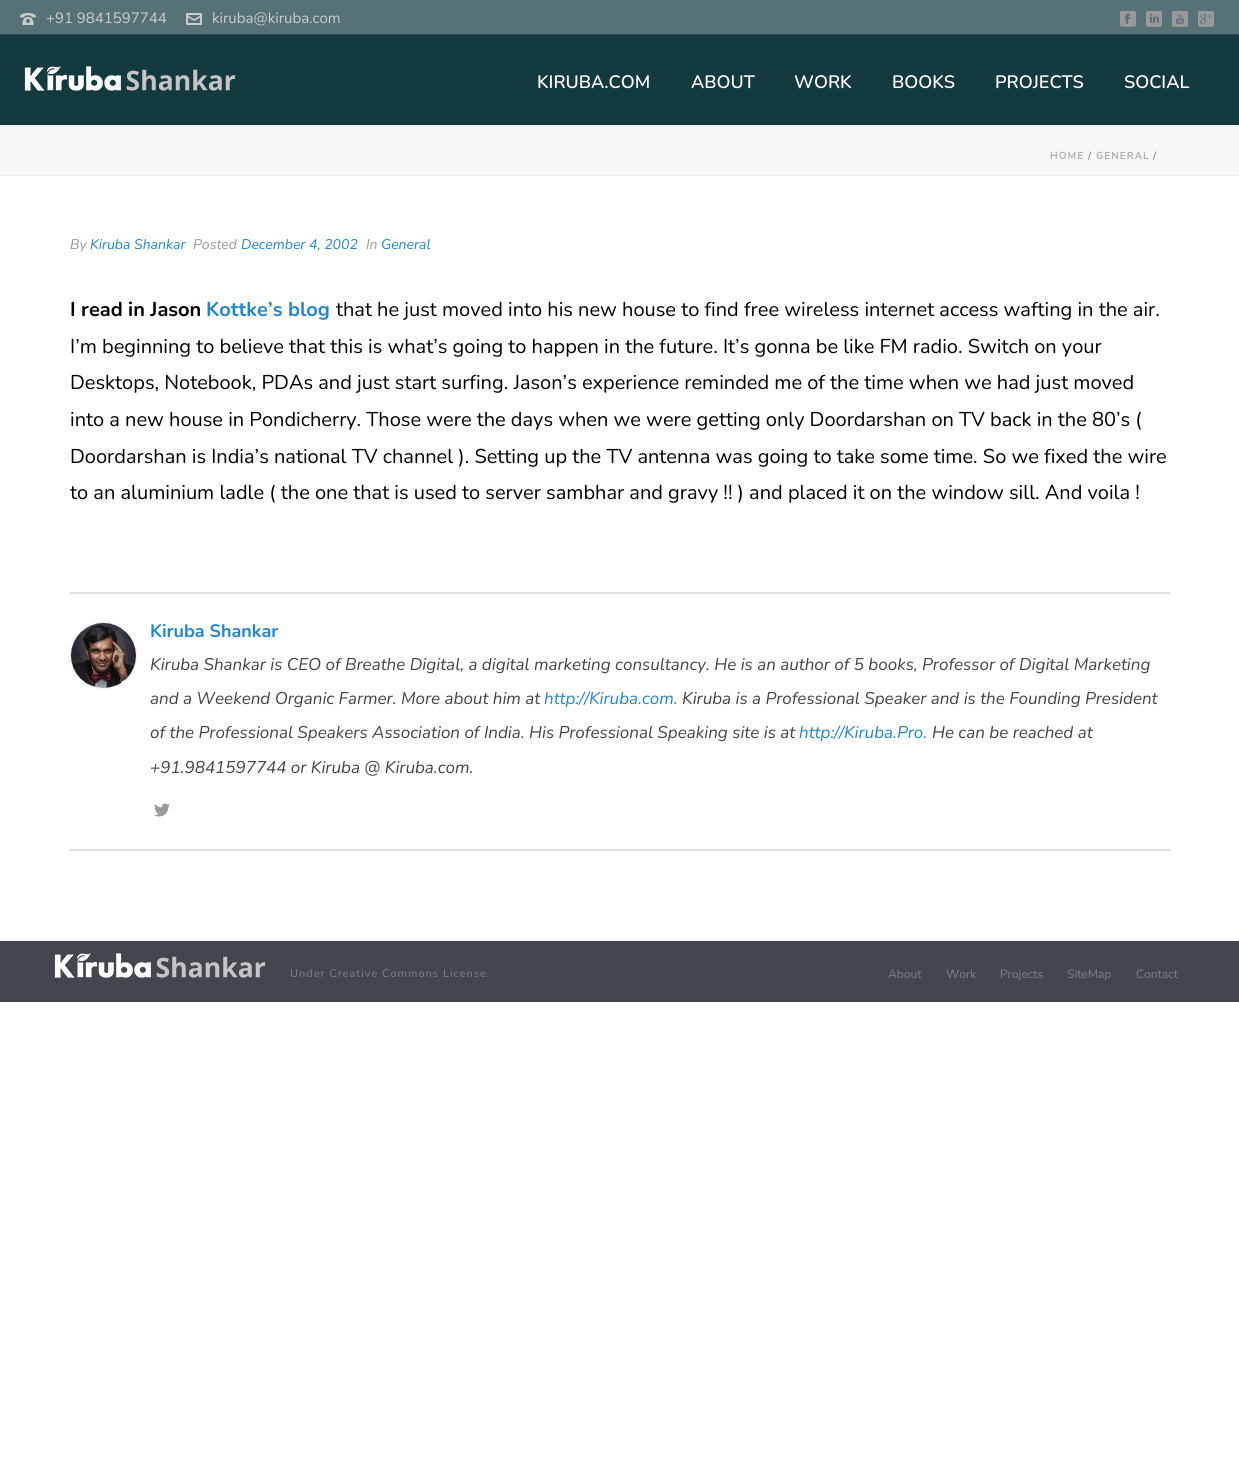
#include <cairo.h>
#include <math.h>
#include <stddef.h>


static void rgb(cairo_t *cr, int r, int g, int b)
{
	cairo_set_source_rgb(cr, r / 255.0, g / 255.0, b / 255.0);
}

static void face(cairo_t *cr, const char *family, double size, int italic, int bold)
{
	cairo_select_font_face(cr, family, italic ? CAIRO_FONT_SLANT_ITALIC : CAIRO_FONT_SLANT_NORMAL,
		bold ? CAIRO_FONT_WEIGHT_BOLD : CAIRO_FONT_WEIGHT_NORMAL);
	cairo_set_font_size(cr, size);
}

static void label(cairo_t *cr, double x, double y, const char *s)
{
	cairo_move_to(cr, x, y);
	cairo_show_text(cr, s);
}

static void tracked(cairo_t *cr, double x, double y, const char *s, double letter, double word)
{
	cairo_move_to(cr, x, y);
	while (*s) {
		char ch[5] = {0};
		int n = 0;
		do ch[n++] = *s++; while ((*s & 0xC0) == 0x80);
		cairo_show_text(cr, ch);
		cairo_rel_move_to(cr, letter + word * (*ch == ' '), 0);
	}
}

static void rect(cairo_t *cr, double x, double y, double w, double h)
{
	cairo_rectangle(cr, x, y, w, h);
	cairo_fill(cr);
}

static void image(cairo_t *cr, const char *path, double x, double y, double w, double h)
{
	cairo_surface_t *image = cairo_image_surface_create_from_png(path);
	cairo_save(cr);
	cairo_set_source_surface(cr, image, x, y);
	cairo_rectangle(cr, x, y, w, h);
	cairo_fill(cr);
	cairo_restore(cr);
	cairo_surface_destroy(image);
}

static void draw(cairo_t *cr) {
	rgb(cr, 255, 255, 255);
	cairo_paint(cr);
	rgb(cr, 247, 247, 247);
	rect(cr, 0, 126, 1239, 49);
	rgb(cr, 237, 237, 237);
	rect(cr, 0, 175, 1239, 1);
	rgb(cr, 87, 114, 118);
	rect(cr, 0, 0, 1239, 34);
	rgb(cr, 34, 82, 88);
	rect(cr, 0, 34, 1239, 1);
	image(cr, "image0.png", 20, 13, 16, 12);
	face(cr, "Nunito", 15, 0, 0);
	rgb(cr, 204, 204, 204);
	label(cr, 46, 23, "+91 9841597744");
	image(cr, "image1.png", 186, 13, 16, 12);
	label(cr, 212, 23, "kiruba@kiruba.com");
	image(cr, "image2.png", 1120, 11, 16, 16);
	image(cr, "image3.png", 1146, 11, 16, 16);
	image(cr, "image4.png", 1172, 11, 16, 16);
	image(cr, "image5.png", 1198, 11, 16, 16);
	rgb(cr, 237, 237, 237);
	rect(cr, 0, 125, 1239, 1);
	rgb(cr, 20, 57, 63);
	rect(cr, 0, 35, 1239, 90);
	image(cr, "image6.png", 24, 66, 212, 25);
	face(cr, "Nunito SemiBold", 18, 0, 0);
	rgb(cr, 255, 255, 255);
	label(cr, 537, 88, "KIRUBA.COM");
	label(cr, 691, 88, "ABOUT");
	label(cr, 794, 88, "WORK");
	label(cr, 892, 88, "BOOKS");
	label(cr, 995, 88, "PROJECTS");
	label(cr, 1124, 88, "SOCIAL");
	face(cr, "Nunito", 10, 0, 1);
	rgb(cr, 175, 175, 175);
	tracked(cr, 1050, 159, "HOME", 1, 0);
	rgb(cr, 145, 145, 145);
	tracked(cr, 1088, 159, "/", 1, 0);
	rgb(cr, 175, 175, 175);
	tracked(cr, 1096, 159, "GENERAL", 1, 0);
	rgb(cr, 145, 145, 145);
	tracked(cr, 1153, 159, "/", 1, 0);
	face(cr, "Nunito", 14, 1, 0);
	rgb(cr, 153, 153, 153);
	label(cr, 70, 249, "By");
	rgb(cr, 32, 133, 210);
	label(cr, 90, 249, "Kiruba Shankar");
	rgb(cr, 153, 153, 153);
	label(cr, 193, 249, "Posted");
	rgb(cr, 32, 133, 210);
	label(cr, 241, 249, "December 4, 2002");
	rgb(cr, 153, 153, 153);
	label(cr, 366, 249, "In");
	rgb(cr, 32, 133, 210);
	label(cr, 381, 249, "General");
	face(cr, "Nunito", 20, 0, 1);
	rgb(cr, 0, 0, 0);
	label(cr, 70, 316, "I read in Jason");
	rgb(cr, 32, 133, 210);
	label(cr, 206, 316, "Kottke’s blog");
	face(cr, "Nunito", 20, 0, 0);
	rgb(cr, 0, 0, 0);
	label(cr, 336, 316, "that he just moved into his new house to find free wireless internet access wafting in the air.");
	label(cr, 70, 353, "I’m beginning to believe that this is what’s going to happen in the future. It’s gonna be like FM radio. Switch on your");
	label(cr, 70, 389, "Desktops, Notebook, PDAs and just start surfing. Jason’s experience reminded me of the time when we had just moved");
	label(cr, 70, 426, "into a new house in Pondicherry. Those were the days when we were getting only Doordarshan on TV back in the 80’s (");
	label(cr, 70, 463, "Doordarshan is India’s national TV channel ). Setting up the TV antenna was going to take some time. So we fixed the wire");
	label(cr, 70, 499, "to an aluminium ladle ( the one that is used to server sambhar and gravy !! ) and placed it on the window sill. And voila !");
	rgb(cr, 221, 221, 221);
	rect(cr, 70, 592, 1100, 2);
	rect(cr, 70, 849, 1100, 2);
	cairo_new_path(cr);
	cairo_arc(cr, 103.5, 655.5, 33, 0, 2 * M_PI);
	rgb(cr, 238, 238, 238);
	cairo_set_line_width(cr, 1);
	cairo_stroke(cr);
	image(cr, "image7.png", 71, 623, 65, 65);
	face(cr, "Nunito", 18, 0, 1);
	rgb(cr, 32, 133, 210);
	label(cr, 150, 637, "Kiruba Shankar");
	face(cr, "Nunito", 17, 1, 0);
	rgb(cr, 68, 68, 68);
	label(cr, 150, 670, "Kiruba Shankar is CEO of Breathe Digital, a digital marketing consultancy. He is an author of 5 books, Professor of Digital Marketing");
	label(cr, 150, 704, "and a Weekend Organic Farmer. More about him at");
	rgb(cr, 32, 133, 210);
	label(cr, 544, 704, "http://Kiruba.com.");
	rgb(cr, 68, 68, 68);
	label(cr, 682, 704, "Kiruba is a Professional Speaker and is the Founding President");
	label(cr, 150, 738, "of the Professional Speakers Association of India. His Professional Speaking site is at");
	rgb(cr, 32, 133, 210);
	label(cr, 799, 738, "http://Kiruba.Pro.");
	rgb(cr, 68, 68, 68);
	label(cr, 932, 738, "He can be reached at");
	label(cr, 150, 773, "+91.9841597744 or Kiruba @ Kiruba.com.");
	image(cr, "image8.png", 154, 803, 16, 14);
	rgb(cr, 67, 71, 77);
	rect(cr, 0, 941, 1239, 61);
	image(cr, "image9.png", 54, 953, 212, 25);
	face(cr, "Nunito", 11, 0, 0);
	rgb(cr, 125, 128, 131);
	tracked(cr, 290, 977, "Under Creative Commons License.", 1, 0);
	face(cr, "Nunito", 12, 0, 0);
	label(cr, 888, 978, "About");
	label(cr, 946, 978, "Work");
	label(cr, 1000, 978, "Projects");
	label(cr, 1067, 978, "SiteMap");
	label(cr, 1136, 978, "Contact");
}

int main(void) {
	cairo_surface_t *surface = cairo_image_surface_create(CAIRO_FORMAT_RGB24, 1239, 1472);
	cairo_t *cr = cairo_create(surface);
	cairo_font_options_t *options = cairo_font_options_create();
	cairo_font_options_set_hint_metrics(options, CAIRO_HINT_METRICS_OFF);
	cairo_font_options_set_hint_style(options, CAIRO_HINT_STYLE_NONE);
	cairo_set_font_options(cr, options);
	cairo_set_miter_limit(cr, 4);
	draw(cr);
	cairo_surface_write_to_png(surface, "render.png");
	cairo_font_options_destroy(options);
	cairo_destroy(cr);
	cairo_surface_destroy(surface);
	return 0;
}
